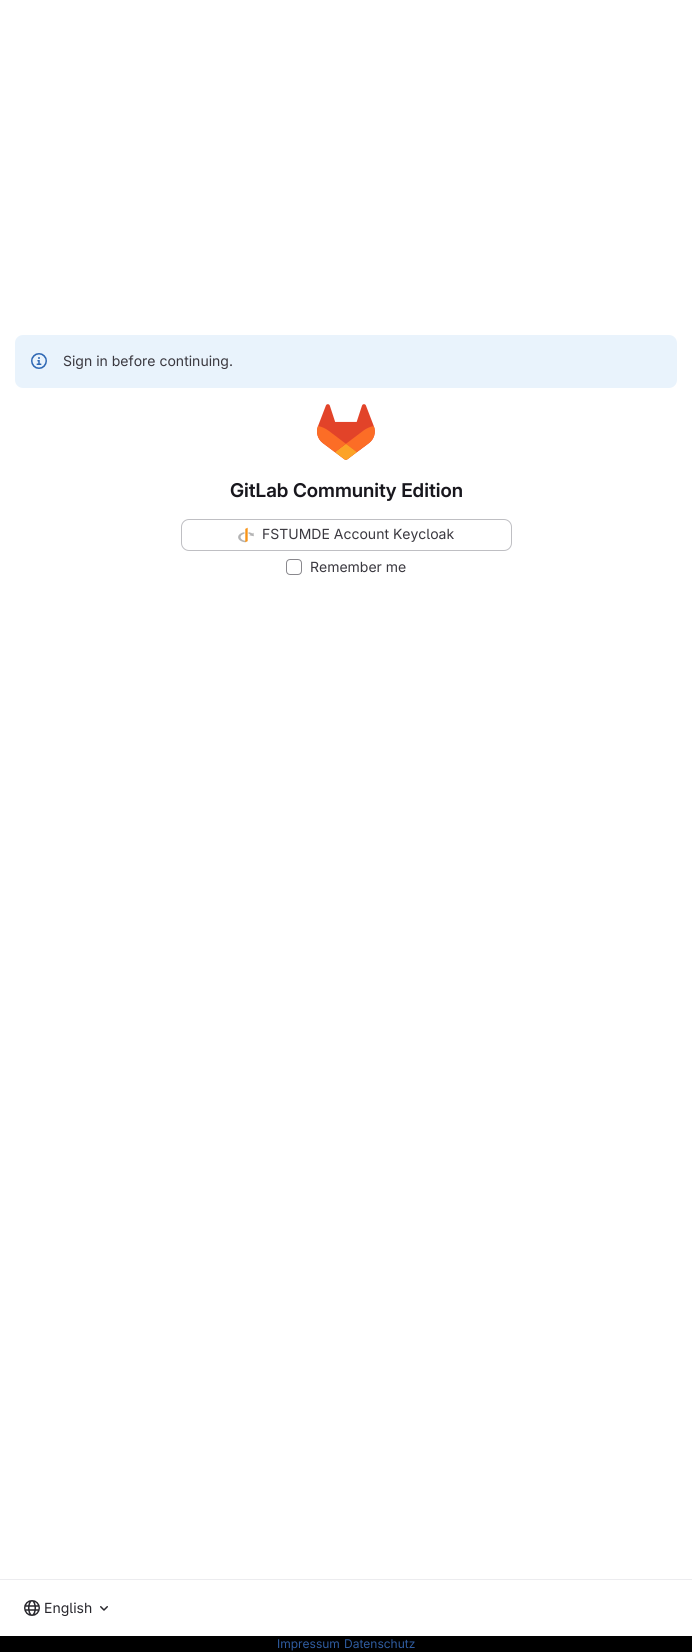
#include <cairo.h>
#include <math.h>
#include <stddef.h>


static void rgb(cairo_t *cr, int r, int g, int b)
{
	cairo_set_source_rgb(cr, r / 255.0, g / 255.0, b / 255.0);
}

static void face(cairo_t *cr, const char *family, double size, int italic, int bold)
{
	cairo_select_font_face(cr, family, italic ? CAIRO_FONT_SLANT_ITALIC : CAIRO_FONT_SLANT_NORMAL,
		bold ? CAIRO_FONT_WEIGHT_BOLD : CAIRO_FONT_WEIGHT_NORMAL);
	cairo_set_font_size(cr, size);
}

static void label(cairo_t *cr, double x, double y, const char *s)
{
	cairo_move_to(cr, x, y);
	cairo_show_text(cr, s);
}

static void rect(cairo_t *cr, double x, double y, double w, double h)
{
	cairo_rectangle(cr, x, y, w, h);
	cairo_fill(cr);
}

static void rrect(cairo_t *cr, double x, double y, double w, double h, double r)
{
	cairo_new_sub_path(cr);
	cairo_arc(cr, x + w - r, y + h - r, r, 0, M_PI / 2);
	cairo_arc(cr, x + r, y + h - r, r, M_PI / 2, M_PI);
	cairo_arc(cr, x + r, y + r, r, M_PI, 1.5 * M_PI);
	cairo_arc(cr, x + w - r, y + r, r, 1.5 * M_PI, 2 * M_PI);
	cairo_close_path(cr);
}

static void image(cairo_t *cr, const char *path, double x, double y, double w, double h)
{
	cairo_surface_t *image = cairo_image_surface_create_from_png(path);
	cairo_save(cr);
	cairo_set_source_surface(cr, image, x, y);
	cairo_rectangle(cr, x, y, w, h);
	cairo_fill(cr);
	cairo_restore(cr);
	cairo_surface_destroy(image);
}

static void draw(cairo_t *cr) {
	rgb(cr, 255, 255, 255);
	cairo_paint(cr);
	rgb(cr, 233, 243, 252);
	rrect(cr, 15, 335, 662, 53, 8);
	cairo_fill(cr);
	image(cr, "image0.png", 31, 353, 16, 16);
	face(cr, "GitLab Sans", 14, 0, 0);
	rgb(cr, 58, 56, 63);
	label(cr, 63, 366, "Sign in before continuing.");
	image(cr, "image1.png", 317, 404, 58, 56);
	face(cr, "GitLab Sans SemiBold", 19, 0, 0);
	rgb(cr, 24, 23, 29);
	label(cr, 230, 497, "GitLab Community Edition");
	rrect(cr, 181.5, 519.5, 330, 31, 7.5);
	rgb(cr, 191, 191, 195);
	cairo_set_line_width(cr, 1);
	cairo_stroke(cr);
	image(cr, "image2.png", 238, 527, 16, 16);
	face(cr, "GitLab Sans", 14, 0, 0);
	rgb(cr, 58, 56, 63);
	label(cr, 262, 539, "FSTUMDE Account Keycloak");
	rrect(cr, 286.5, 559.5, 15, 15, 3.5);
	rgb(cr, 137, 136, 141);
	cairo_stroke(cr);
	rgb(cr, 58, 56, 63);
	label(cr, 310, 572, "Remember me");
	rgb(cr, 236, 236, 239);
	rect(cr, 0, 1579, 692, 1);
	image(cr, "image3.png", 24, 1600, 16, 16);
	rgb(cr, 40, 39, 45);
	label(cr, 44, 1613, "English");
	image(cr, "image4.png", 100, 1606, 8, 5);
	rgb(cr, 0, 0, 0);
	rect(cr, 0, 1636, 692, 16);
	face(cr, "GitLab Sans", 12, 0, 0);
	rgb(cr, 47, 92, 160);
	label(cr, 277, 1648, "Impressum");
	label(cr, 344, 1648, "Datenschutz");
}

int main(void) {
	cairo_surface_t *surface = cairo_image_surface_create(CAIRO_FORMAT_RGB24, 692, 1652);
	cairo_t *cr = cairo_create(surface);
	cairo_font_options_t *options = cairo_font_options_create();
	cairo_font_options_set_hint_metrics(options, CAIRO_HINT_METRICS_OFF);
	cairo_font_options_set_hint_style(options, CAIRO_HINT_STYLE_NONE);
	cairo_set_font_options(cr, options);
	cairo_set_miter_limit(cr, 4);
	draw(cr);
	cairo_surface_write_to_png(surface, "render.png");
	cairo_font_options_destroy(options);
	cairo_destroy(cr);
	cairo_surface_destroy(surface);
	return 0;
}
